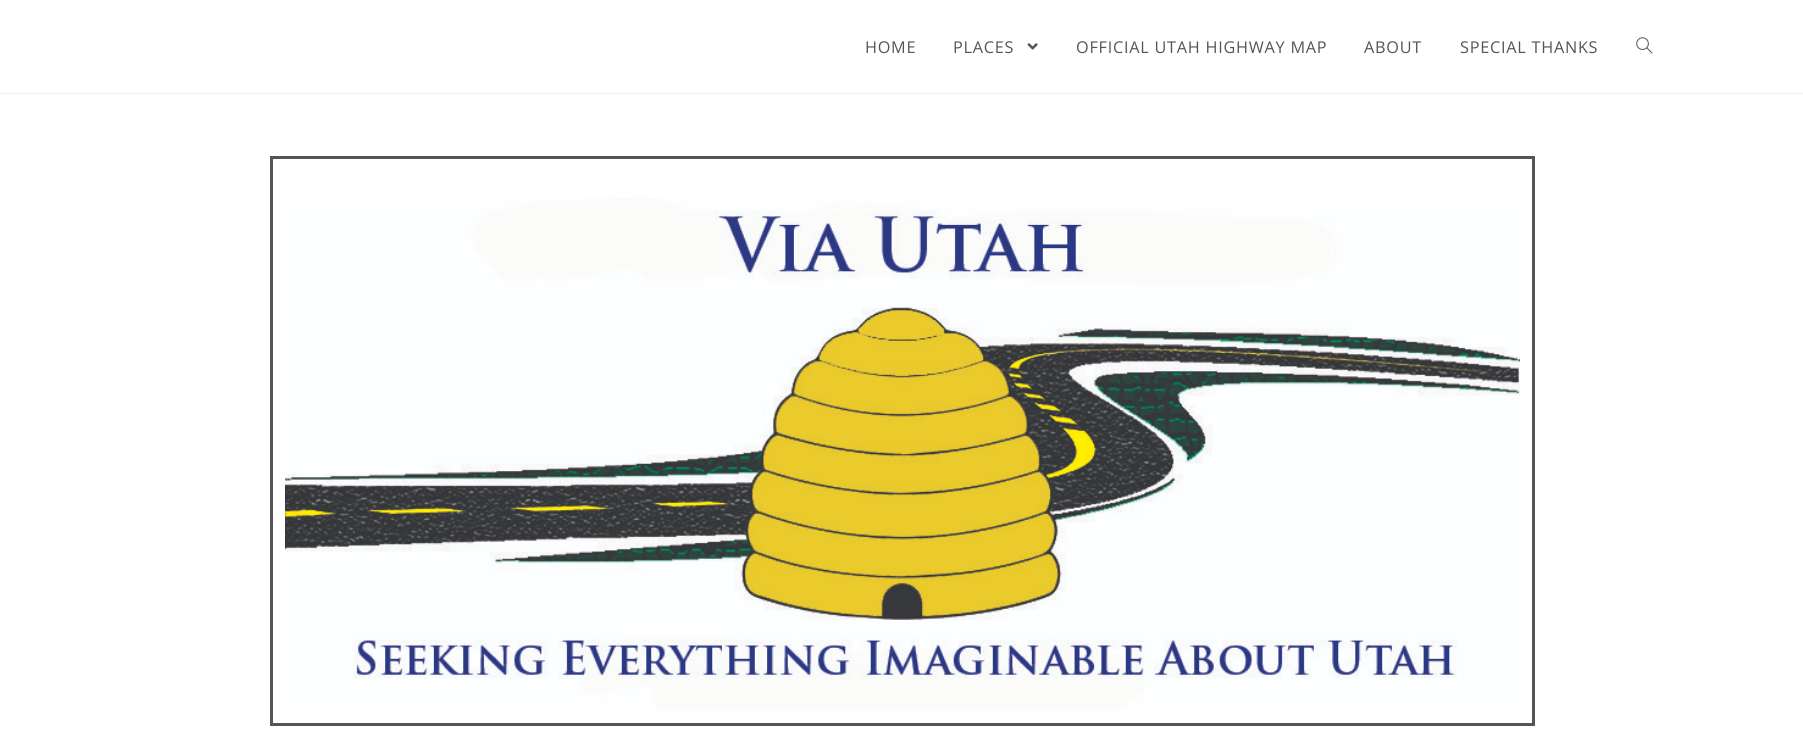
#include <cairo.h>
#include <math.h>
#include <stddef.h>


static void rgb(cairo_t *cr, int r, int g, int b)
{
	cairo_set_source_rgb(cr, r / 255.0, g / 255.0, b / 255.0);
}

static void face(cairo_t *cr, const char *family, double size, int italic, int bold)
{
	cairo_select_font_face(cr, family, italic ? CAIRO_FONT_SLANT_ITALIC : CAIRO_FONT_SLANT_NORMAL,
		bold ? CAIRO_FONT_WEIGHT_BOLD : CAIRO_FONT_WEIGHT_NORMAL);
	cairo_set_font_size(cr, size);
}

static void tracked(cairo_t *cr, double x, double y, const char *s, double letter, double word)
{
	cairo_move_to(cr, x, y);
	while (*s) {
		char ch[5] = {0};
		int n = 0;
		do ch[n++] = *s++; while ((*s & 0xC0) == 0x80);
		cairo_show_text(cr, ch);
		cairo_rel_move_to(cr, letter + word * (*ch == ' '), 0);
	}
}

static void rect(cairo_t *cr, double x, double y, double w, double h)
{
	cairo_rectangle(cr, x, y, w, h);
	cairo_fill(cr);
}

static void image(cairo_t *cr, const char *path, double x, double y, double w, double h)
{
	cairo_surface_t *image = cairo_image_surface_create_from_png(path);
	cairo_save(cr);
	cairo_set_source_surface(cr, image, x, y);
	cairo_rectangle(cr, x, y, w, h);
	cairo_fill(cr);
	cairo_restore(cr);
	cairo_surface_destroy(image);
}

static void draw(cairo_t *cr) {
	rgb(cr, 255, 255, 255);
	cairo_paint(cr);
	rgb(cr, 241, 241, 241);
	rect(cr, 0, 93, 1803, 1);
	face(cr, "Open Sans", 16.25, 0, 0);
	rgb(cr, 85, 85, 85);
	tracked(cr, 865, 53, "HOME", 0.75, 0);
	tracked(cr, 953, 53, "PLACES", 0.75, 0);
	image(cr, "image0.png", 1027, 43, 11, 7);
	tracked(cr, 1076, 53, "OFFICIAL UTAH HIGHWAY MAP", 0.75, 0);
	tracked(cr, 1364, 53, "ABOUT", 0.75, 0);
	tracked(cr, 1460, 53, "SPECIAL THANKS", 0.75, 0);
	image(cr, "image1.png", 1636, 37, 17, 17);
	cairo_rectangle(cr, 271.5, 157.5, 1262, 567);
	cairo_set_line_width(cr, 3);
	cairo_stroke(cr);
	image(cr, "image2.png", 285, 197, 1235, 514);
}

int main(void) {
	cairo_surface_t *surface = cairo_image_surface_create(CAIRO_FORMAT_RGB24, 1803, 739);
	cairo_t *cr = cairo_create(surface);
	cairo_font_options_t *options = cairo_font_options_create();
	cairo_font_options_set_hint_metrics(options, CAIRO_HINT_METRICS_OFF);
	cairo_font_options_set_hint_style(options, CAIRO_HINT_STYLE_NONE);
	cairo_set_font_options(cr, options);
	cairo_set_miter_limit(cr, 4);
	draw(cr);
	cairo_surface_write_to_png(surface, "render.png");
	cairo_font_options_destroy(options);
	cairo_destroy(cr);
	cairo_surface_destroy(surface);
	return 0;
}
